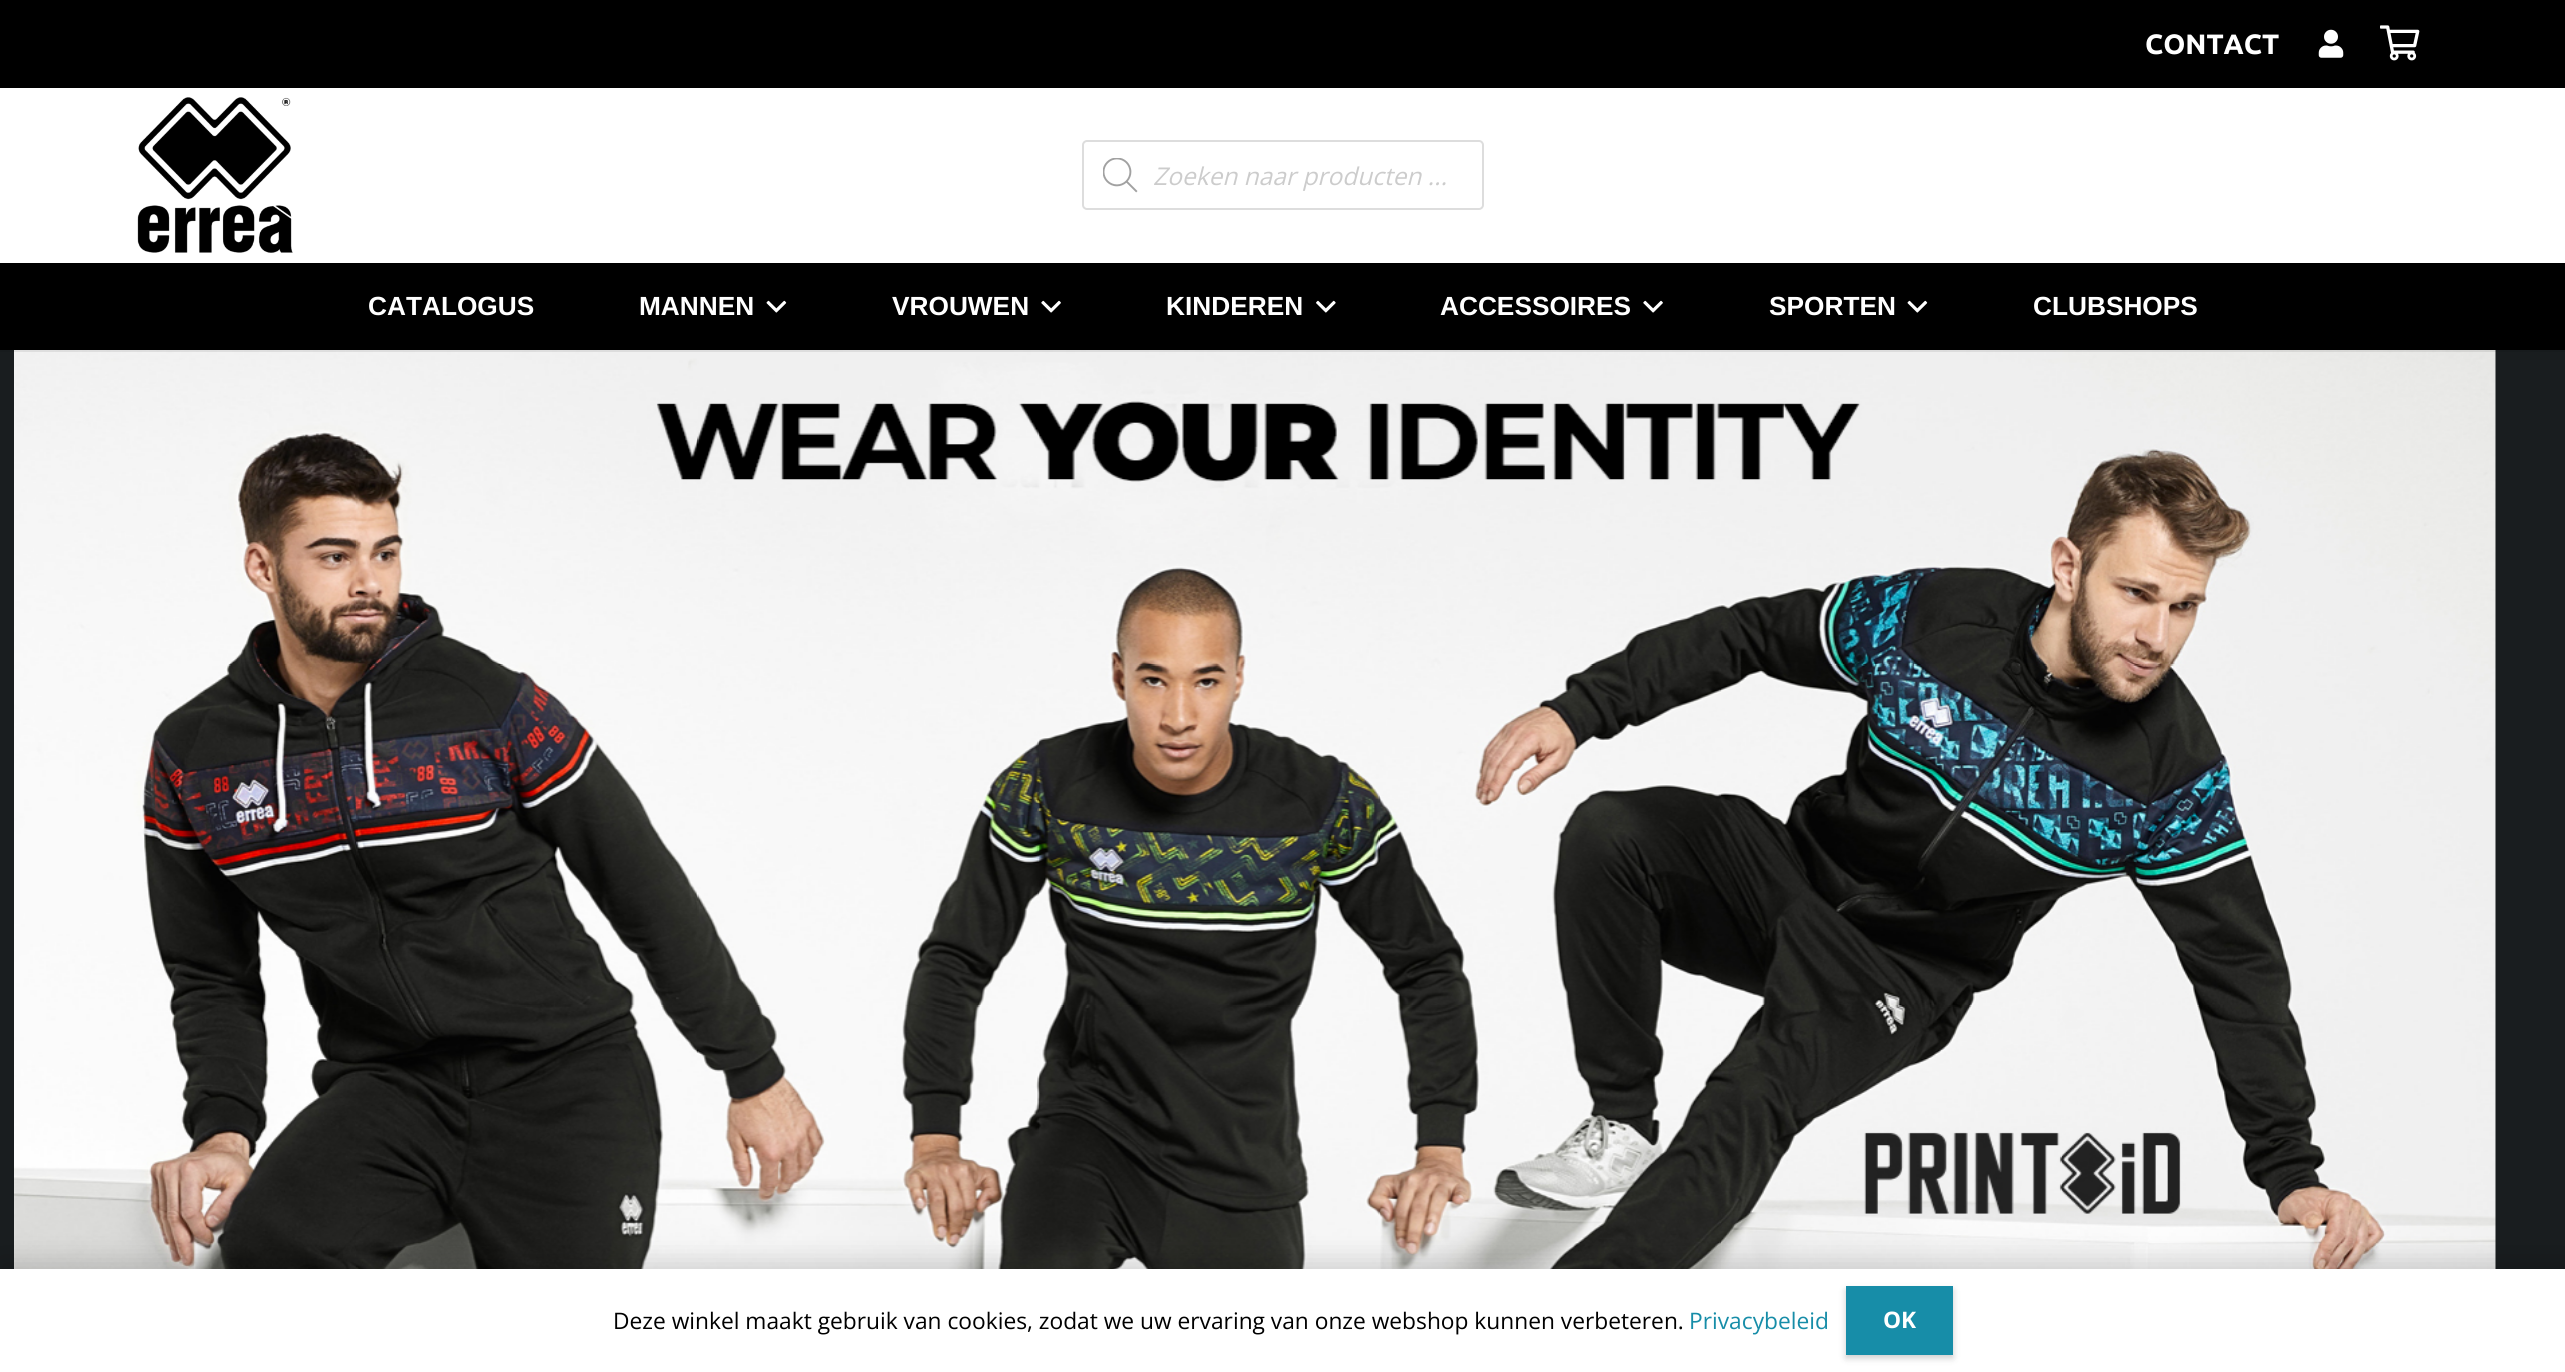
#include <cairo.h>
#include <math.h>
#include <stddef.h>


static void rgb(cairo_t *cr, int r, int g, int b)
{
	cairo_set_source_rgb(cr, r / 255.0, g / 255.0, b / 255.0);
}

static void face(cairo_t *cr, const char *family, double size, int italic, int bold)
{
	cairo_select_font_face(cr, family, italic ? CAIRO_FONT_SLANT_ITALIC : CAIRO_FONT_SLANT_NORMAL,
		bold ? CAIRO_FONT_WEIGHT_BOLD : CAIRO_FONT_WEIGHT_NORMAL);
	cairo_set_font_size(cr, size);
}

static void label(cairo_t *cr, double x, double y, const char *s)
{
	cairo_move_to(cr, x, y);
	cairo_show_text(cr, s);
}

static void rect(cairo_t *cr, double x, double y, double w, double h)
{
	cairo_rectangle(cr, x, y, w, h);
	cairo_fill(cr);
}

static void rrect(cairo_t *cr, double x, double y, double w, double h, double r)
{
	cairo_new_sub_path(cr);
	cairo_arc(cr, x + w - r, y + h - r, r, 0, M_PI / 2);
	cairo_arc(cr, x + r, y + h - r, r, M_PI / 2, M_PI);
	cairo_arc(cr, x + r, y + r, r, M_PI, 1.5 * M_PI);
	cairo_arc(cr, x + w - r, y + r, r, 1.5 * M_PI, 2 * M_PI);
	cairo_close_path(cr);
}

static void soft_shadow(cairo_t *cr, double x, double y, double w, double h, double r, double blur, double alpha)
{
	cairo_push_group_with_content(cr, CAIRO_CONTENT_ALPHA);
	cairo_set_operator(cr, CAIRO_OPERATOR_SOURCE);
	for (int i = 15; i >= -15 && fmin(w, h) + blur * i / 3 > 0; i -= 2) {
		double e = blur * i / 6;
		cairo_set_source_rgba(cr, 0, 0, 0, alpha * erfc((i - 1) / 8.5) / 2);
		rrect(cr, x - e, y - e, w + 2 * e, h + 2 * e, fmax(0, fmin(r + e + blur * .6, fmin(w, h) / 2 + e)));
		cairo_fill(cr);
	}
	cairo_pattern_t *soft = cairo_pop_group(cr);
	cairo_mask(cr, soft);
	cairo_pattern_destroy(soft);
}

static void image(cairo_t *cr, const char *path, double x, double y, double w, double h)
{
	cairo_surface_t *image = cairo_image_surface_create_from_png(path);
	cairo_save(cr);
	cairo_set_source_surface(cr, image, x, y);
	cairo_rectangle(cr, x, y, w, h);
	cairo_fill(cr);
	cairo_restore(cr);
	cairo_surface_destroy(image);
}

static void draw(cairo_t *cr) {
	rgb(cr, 25, 29, 31);
	cairo_paint(cr);
	rgb(cr, 0, 0, 0);
	rect(cr, 0, 0, 2565, 88);
	face(cr, "Ubuntu", 28, 0, 1);
	rgb(cr, 255, 255, 255);
	label(cr, 2145, 54, "CONTACT");
	image(cr, "image0.png", 2318, 29, 26, 29);
	image(cr, "image1.png", 2380, 25, 40, 36);
	rect(cr, 0, 88, 2565, 175);
	image(cr, "image2.png", 137, 97, 156, 156);
	rrect(cr, 1083, 141, 400, 68, 4);
	rgb(cr, 221, 221, 221);
	cairo_stroke(cr);
	image(cr, "image3.png", 1103, 158, 35, 35);
	face(cr, "Open Sans", 24.5, 1, 0);
	rgb(cr, 204, 204, 204);
	label(cr, 1153, 185, "Zoeken naar producten ...");
	image(cr, "image7.png", 14, 350, 2482, 919);
	cairo_set_source_rgba(cr, 0, 0, 0, 0.08);
	cairo_new_path(cr);
	cairo_move_to(cr, 0, 350);
	cairo_line_to(cr, 0, 352);
	cairo_line_to(cr, 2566, 352);
	cairo_line_to(cr, 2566, 264);
	cairo_line_to(cr, 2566, 350);
	cairo_close_path(cr);
	cairo_fill(cr);
	rgb(cr, 0, 0, 0);
	rect(cr, 0, 263, 2565, 87);
	face(cr, "Liberation Sans", 26.25, 0, 1);
	rgb(cr, 255, 255, 255);
	label(cr, 368, 315, "CATALOGUS");
	label(cr, 639, 315, "MANNEN");
	image(cr, "image4.png", 766, 300, 21, 13);
	label(cr, 892, 315, "VROUWEN");
	image(cr, "image5.png", 1041, 300, 20, 13);
	label(cr, 1166, 315, "KINDEREN");
	image(cr, "image6.png", 1316, 300, 20, 13);
	label(cr, 1440, 315, "ACCESSOIRES");
	image(cr, "image5.png", 1643, 300, 20, 13);
	label(cr, 1769, 315, "SPORTEN");
	image(cr, "image4.png", 1907, 300, 21, 13);
	label(cr, 2033, 315, "CLUBSHOPS");
	rgb(cr, 0, 0, 0);
	soft_shadow(cr, 0, 1260, 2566, 103, 0, 13, 0.15);
	rgb(cr, 255, 255, 255);
	rect(cr, 0, 1269, 2565, 103);
	face(cr, "Open Sans", 22.75, 0, 0);
	rgb(cr, 0, 0, 0);
	label(cr, 613, 1329, "Deze winkel maakt gebruik van cookies, zodat we uw ervaring van onze webshop kunnen verbeteren.");
	rgb(cr, 23, 141, 168);
	label(cr, 1689, 1329, "Privacybeleid");
	rgb(cr, 0, 0, 0);
	soft_shadow(cr, 1846, 1290, 107, 68, 0, 3.5, 0.2);
	rgb(cr, 23, 141, 168);
	rect(cr, 1846, 1286, 107, 69);
	face(cr, "Open Sans", 22.75, 0, 1);
	rgb(cr, 255, 255, 255);
	label(cr, 1883, 1328, "OK");
}

int main(void) {
	cairo_surface_t *surface = cairo_image_surface_create(CAIRO_FORMAT_RGB24, 2565, 1372);
	cairo_t *cr = cairo_create(surface);
	cairo_font_options_t *options = cairo_font_options_create();
	cairo_font_options_set_hint_metrics(options, CAIRO_HINT_METRICS_OFF);
	cairo_font_options_set_hint_style(options, CAIRO_HINT_STYLE_NONE);
	cairo_set_font_options(cr, options);
	cairo_set_miter_limit(cr, 4);
	draw(cr);
	cairo_surface_write_to_png(surface, "render.png");
	cairo_font_options_destroy(options);
	cairo_destroy(cr);
	cairo_surface_destroy(surface);
	return 0;
}
